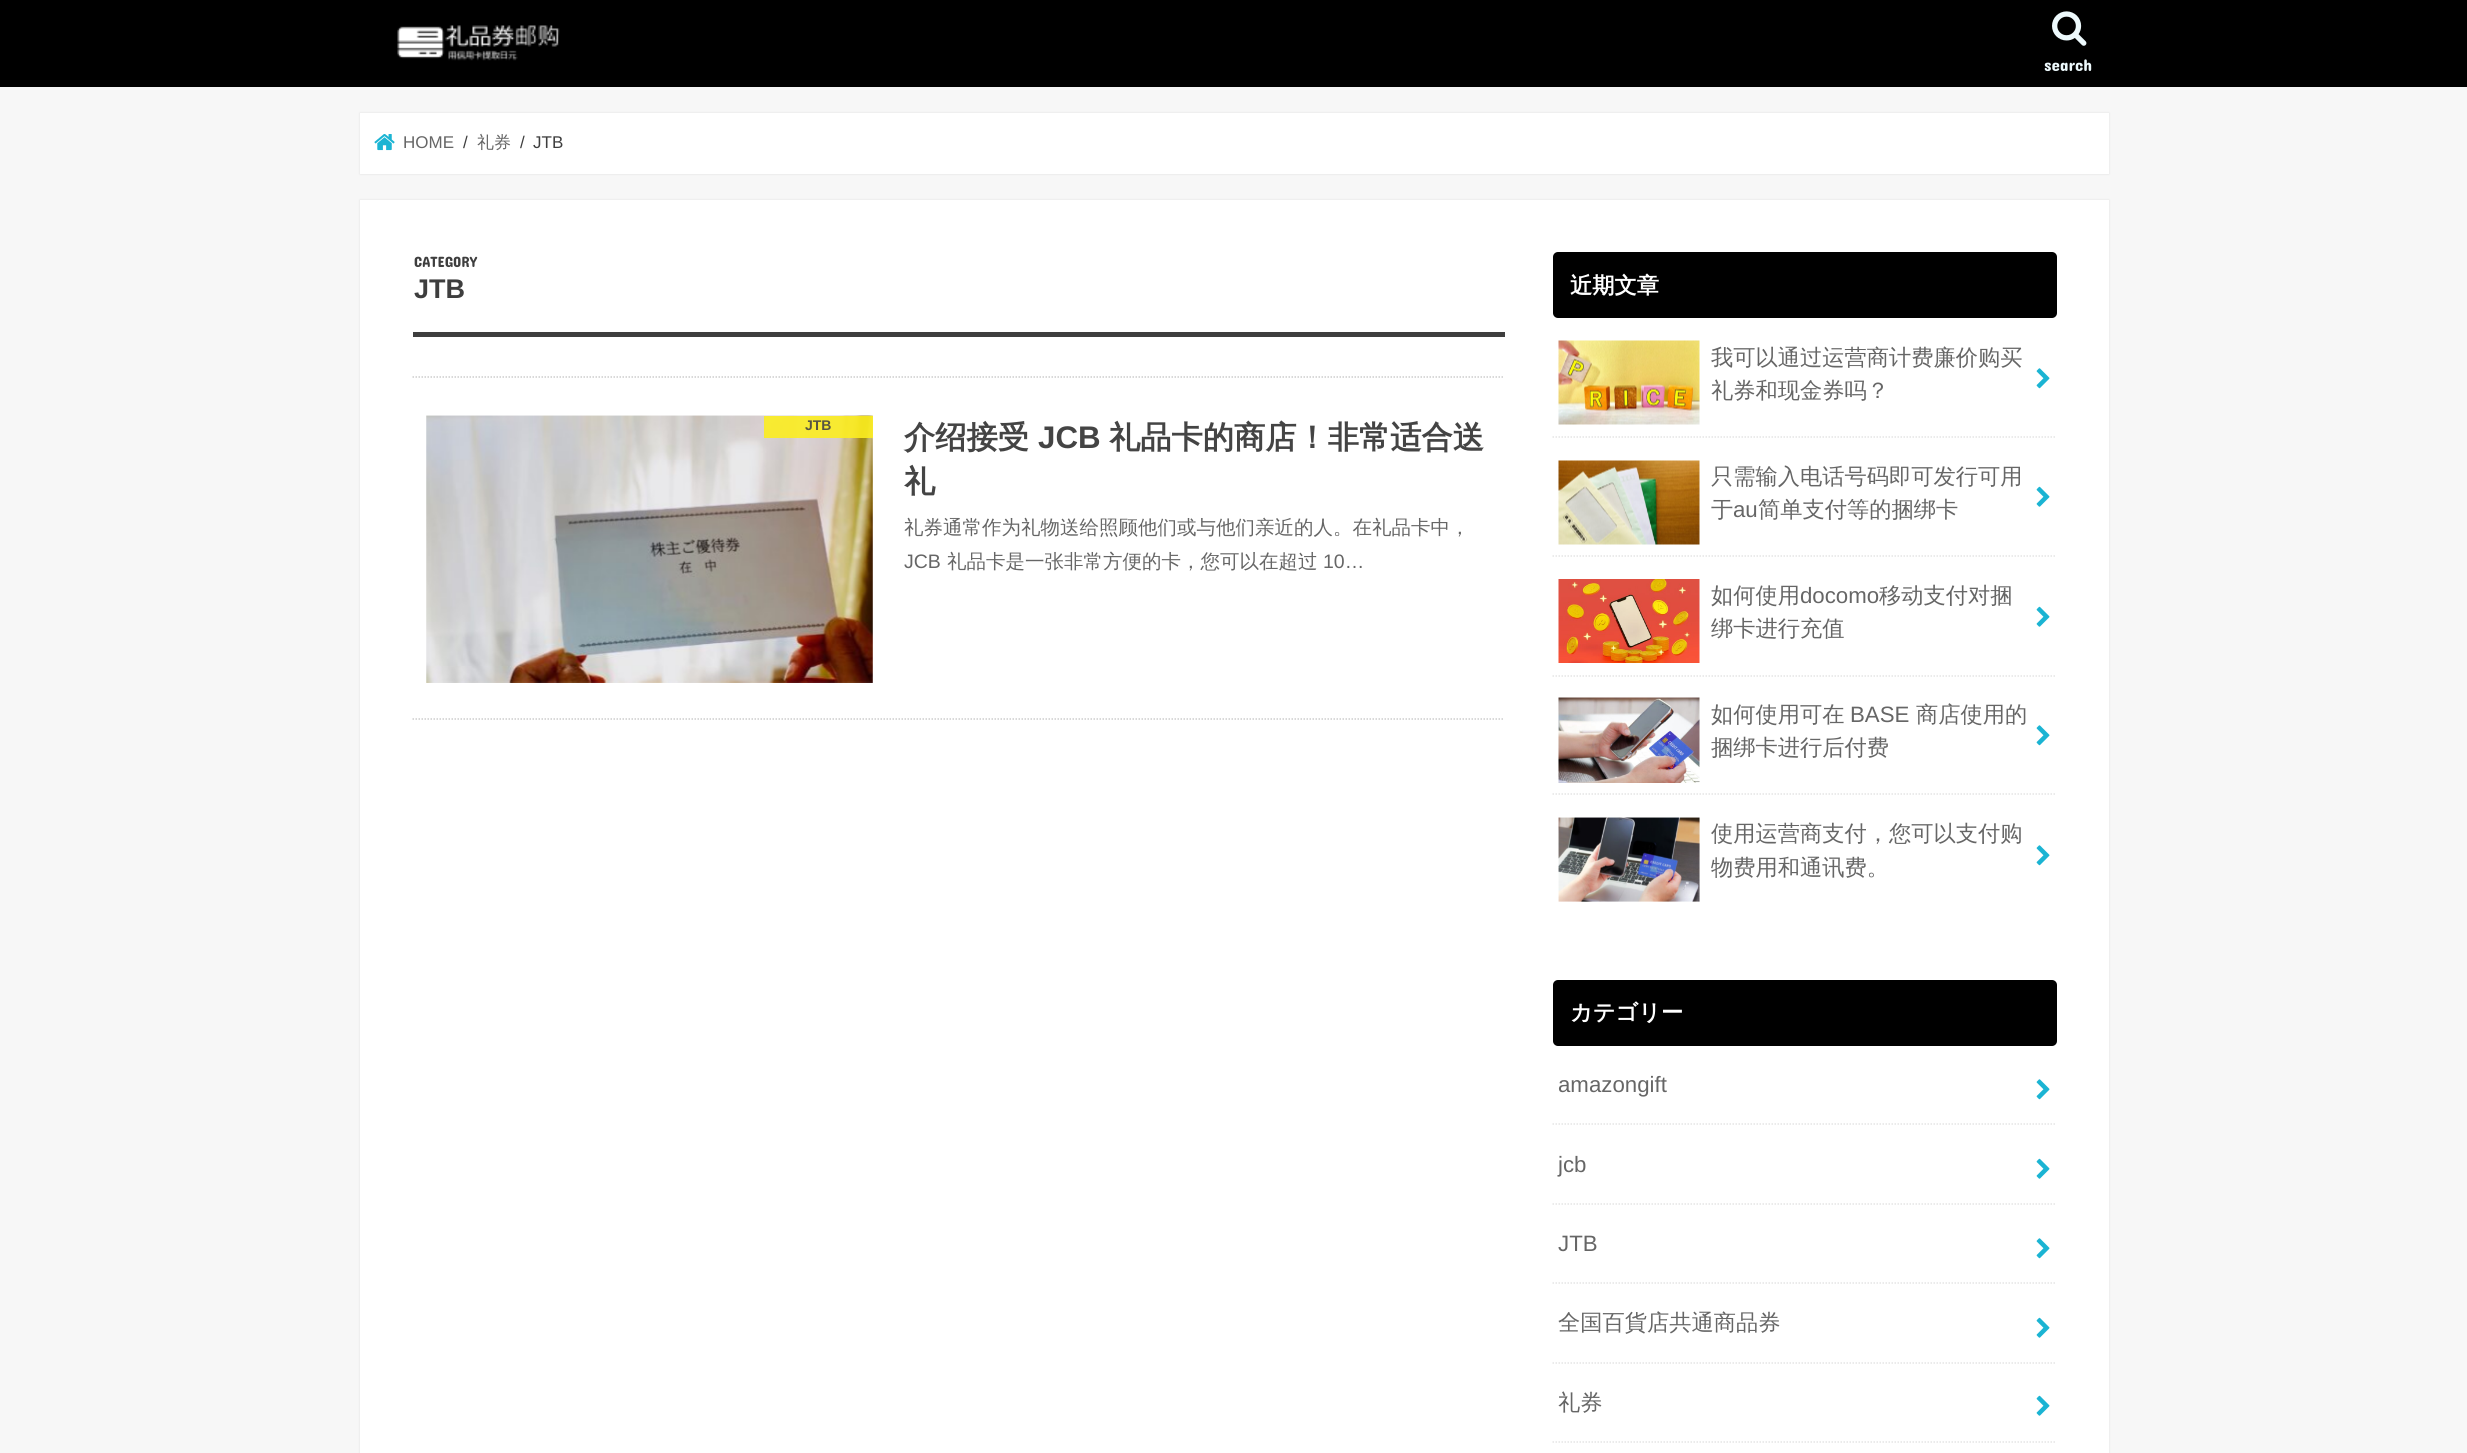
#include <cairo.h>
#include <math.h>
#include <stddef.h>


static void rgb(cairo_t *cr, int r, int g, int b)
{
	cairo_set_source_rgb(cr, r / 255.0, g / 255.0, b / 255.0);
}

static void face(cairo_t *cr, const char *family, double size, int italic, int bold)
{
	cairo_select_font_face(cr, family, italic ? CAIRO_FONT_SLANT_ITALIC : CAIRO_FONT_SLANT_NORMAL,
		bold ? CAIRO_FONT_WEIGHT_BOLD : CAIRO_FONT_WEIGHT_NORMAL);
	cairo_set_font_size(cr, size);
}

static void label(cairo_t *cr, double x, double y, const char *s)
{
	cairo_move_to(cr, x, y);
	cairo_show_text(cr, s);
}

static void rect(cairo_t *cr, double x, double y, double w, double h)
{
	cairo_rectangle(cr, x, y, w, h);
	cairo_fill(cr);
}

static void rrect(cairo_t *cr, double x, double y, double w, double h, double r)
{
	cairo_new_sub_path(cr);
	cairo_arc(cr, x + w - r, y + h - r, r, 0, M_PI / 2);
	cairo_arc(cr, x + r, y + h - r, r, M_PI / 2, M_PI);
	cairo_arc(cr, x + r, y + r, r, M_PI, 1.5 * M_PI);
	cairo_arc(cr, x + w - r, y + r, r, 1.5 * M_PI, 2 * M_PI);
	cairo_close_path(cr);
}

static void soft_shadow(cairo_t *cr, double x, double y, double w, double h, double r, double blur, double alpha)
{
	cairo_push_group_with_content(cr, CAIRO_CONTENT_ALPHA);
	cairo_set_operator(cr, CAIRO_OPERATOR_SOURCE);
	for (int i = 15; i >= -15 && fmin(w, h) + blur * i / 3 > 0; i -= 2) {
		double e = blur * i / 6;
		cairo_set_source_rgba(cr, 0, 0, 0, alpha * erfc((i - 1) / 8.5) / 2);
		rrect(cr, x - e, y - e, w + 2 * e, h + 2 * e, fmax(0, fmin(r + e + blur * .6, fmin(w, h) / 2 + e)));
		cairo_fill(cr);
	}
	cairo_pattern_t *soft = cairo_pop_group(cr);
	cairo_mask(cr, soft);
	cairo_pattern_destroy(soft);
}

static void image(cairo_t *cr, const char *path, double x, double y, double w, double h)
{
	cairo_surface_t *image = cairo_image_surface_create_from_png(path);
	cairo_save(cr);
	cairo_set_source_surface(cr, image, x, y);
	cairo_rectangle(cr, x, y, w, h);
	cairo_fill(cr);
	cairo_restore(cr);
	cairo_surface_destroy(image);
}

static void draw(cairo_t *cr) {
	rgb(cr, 247, 247, 247);
	cairo_paint(cr);
	rgb(cr, 0, 0, 0);
	rect(cr, 0, 0, 2467, 87);
	image(cr, "image0.png", 397, 25, 163, 36);
	image(cr, "image1.png", 2052, 11, 35, 35);
	face(cr, "Concert One", 17, 0, 0);
	rgb(cr, 237, 249, 252);
	label(cr, 2044, 71, "search");
	rgb(cr, 221, 221, 221);
	soft_shadow(cr, 360, 113, 1749, 61, 0, 1, 1);
	rgb(cr, 255, 255, 255);
	rect(cr, 360, 113, 1749, 61);
	image(cr, "image2.png", 374, 134, 21, 17);
	face(cr, "Liberation Sans", 17, 0, 0);
	rgb(cr, 102, 102, 102);
	label(cr, 403, 148, "HOME");
	rgb(cr, 62, 62, 62);
	label(cr, 463, 148, "/");
	face(cr, "WenQuanYi Zen Hei Medium", 17, 0, 0);
	rgb(cr, 102, 102, 102);
	label(cr, 477, 148, "礼券");
	face(cr, "Liberation Sans", 17, 0, 0);
	rgb(cr, 62, 62, 62);
	label(cr, 520, 148, "/");
	label(cr, 533, 148, "JTB");
	rgb(cr, 221, 221, 221);
	soft_shadow(cr, 360, 200, 1749, 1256, 0, 1, 1);
	rgb(cr, 255, 255, 255);
	rect(cr, 360, 200, 1749, 1253);
	rgb(cr, 62, 62, 62);
	rect(cr, 413, 332, 1092, 5);
	face(cr, "Concert One", 15, 0, 0);
	label(cr, 414, 267, "CATEGORY");
	face(cr, "Liberation Sans", 27, 0, 1);
	label(cr, 414, 298, "JTB");
	cairo_new_path(cr);
	cairo_move_to(cr, 412.5, 377);
	cairo_line_to(cr, 1504.5, 377);
	rgb(cr, 204, 204, 204);
	cairo_set_line_width(cr, 1.5);
	cairo_set_dash(cr, (double[]){1.5, 1.5}, 2, 0);
	cairo_stroke(cr);
	cairo_new_path(cr);
	cairo_move_to(cr, 412.5, 719);
	cairo_line_to(cr, 1504.5, 719);
	cairo_stroke(cr);
	image(cr, "image3.png", 426, 415, 447, 268);
	cairo_set_source_rgba(cr, 0.988, 0.933, 0.129, 0.9);
	rect(cr, 764, 416, 109, 22);
	face(cr, "Liberation Sans", 14, 0, 1);
	rgb(cr, 86, 85, 66);
	label(cr, 805, 430, "JTB");
	face(cr, "WenQuanYi Zen Hei", 31.25, 0, 1);
	rgb(cr, 68, 68, 68);
	label(cr, 904, 448, "介绍接受");
	face(cr, "Liberation Sans", 31.25, 0, 1);
	label(cr, 1038, 448, "JCB");
	face(cr, "WenQuanYi Zen Hei", 31.25, 0, 1);
	label(cr, 1109, 448, "礼品卡的商店！非常适合送");
	label(cr, 904, 492, "礼");
	face(cr, "WenQuanYi Zen Hei Medium", 19.5, 0, 0);
	rgb(cr, 102, 102, 102);
	label(cr, 904, 534, "礼券通常作为礼物送给照顾他们或与他们亲近的人。在礼品卡中，");
	face(cr, "Liberation Sans", 19.5, 0, 0);
	label(cr, 904, 568, "JCB");
	face(cr, "WenQuanYi Zen Hei Medium", 19.5, 0, 0);
	label(cr, 947, 568, "礼品卡是一张非常方便的卡，您可以在超过");
	face(cr, "Liberation Sans", 19.5, 0, 0);
	label(cr, 1323, 568, "10…");
	rgb(cr, 0, 0, 0);
	rrect(cr, 1553, 252, 504, 66, 5);
	cairo_fill(cr);
	face(cr, "WenQuanYi Zen Hei", 22.25, 0, 1);
	rgb(cr, 255, 255, 255);
	label(cr, 1570, 293, "近期文章");
	cairo_new_path(cr);
	cairo_move_to(cr, 1552.5, 437);
	cairo_line_to(cr, 2056.5, 437);
	rgb(cr, 229, 229, 229);
	cairo_stroke(cr);
	image(cr, "image4.png", 1558, 340, 142, 85);
	face(cr, "WenQuanYi Zen Hei Medium", 22.25, 0, 0);
	rgb(cr, 102, 102, 102);
	label(cr, 1711, 365, "我可以通过运营商计费廉价购买");
	label(cr, 1711, 398, "礼券和现金券吗？");
	image(cr, "image5.png", 2036, 368, 14, 21);
	cairo_new_path(cr);
	cairo_move_to(cr, 1552.5, 556);
	cairo_line_to(cr, 2056.5, 556);
	rgb(cr, 229, 229, 229);
	cairo_stroke(cr);
	image(cr, "image6.png", 1558, 460, 142, 85);
	rgb(cr, 102, 102, 102);
	label(cr, 1711, 484, "只需输入电话号码即可发行可用");
	label(cr, 1711, 517, "于");
	face(cr, "Liberation Sans", 22.25, 0, 0);
	label(cr, 1733, 517, "au");
	face(cr, "WenQuanYi Zen Hei Medium", 22.25, 0, 0);
	label(cr, 1758, 517, "简单支付等的捆绑卡");
	image(cr, "image7.png", 2036, 486, 14, 21);
	cairo_new_path(cr);
	cairo_move_to(cr, 1552.5, 676);
	cairo_line_to(cr, 2056.5, 676);
	rgb(cr, 229, 229, 229);
	cairo_stroke(cr);
	image(cr, "image8.png", 1558, 579, 142, 84);
	rgb(cr, 102, 102, 102);
	label(cr, 1711, 603, "如何使用");
	face(cr, "Liberation Sans", 22.25, 0, 0);
	label(cr, 1800, 603, "docomo");
	face(cr, "WenQuanYi Zen Hei Medium", 22.25, 0, 0);
	label(cr, 1879, 603, "移动支付对捆");
	label(cr, 1711, 636, "绑卡进行充值");
	image(cr, "image7.png", 2036, 606, 14, 21);
	cairo_new_path(cr);
	cairo_move_to(cr, 1552.5, 794);
	cairo_line_to(cr, 2056.5, 794);
	rgb(cr, 229, 229, 229);
	cairo_stroke(cr);
	image(cr, "image9.png", 1558, 697, 142, 86);
	rgb(cr, 102, 102, 102);
	label(cr, 1711, 722, "如何使用可在");
	face(cr, "Liberation Sans", 22.25, 0, 0);
	label(cr, 1850, 722, "BASE");
	face(cr, "WenQuanYi Zen Hei Medium", 22.25, 0, 0);
	label(cr, 1916, 722, "商店使用的");
	label(cr, 1711, 755, "捆绑卡进行后付费");
	image(cr, "image5.png", 2036, 725, 14, 21);
	image(cr, "image10.png", 1558, 817, 142, 85);
	label(cr, 1711, 841, "使用运营商支付，您可以支付购");
	label(cr, 1711, 875, "物费用和通讯费。");
	image(cr, "image5.png", 2036, 845, 14, 21);
	rgb(cr, 0, 0, 0);
	rrect(cr, 1553, 980, 504, 66, 5);
	cairo_fill(cr);
	face(cr, "WenQuanYi Zen Hei", 22.25, 0, 1);
	rgb(cr, 255, 255, 255);
	label(cr, 1570, 1020, "カテゴリー");
	cairo_new_path(cr);
	cairo_move_to(cr, 1552.5, 1124);
	cairo_line_to(cr, 2056.5, 1124);
	rgb(cr, 229, 229, 229);
	cairo_stroke(cr);
	face(cr, "Liberation Sans", 22.25, 0, 0);
	rgb(cr, 102, 102, 102);
	label(cr, 1558, 1092, "amazongift");
	image(cr, "image5.png", 2036, 1079, 14, 21);
	cairo_new_path(cr);
	cairo_move_to(cr, 1552.5, 1204);
	cairo_line_to(cr, 2056.5, 1204);
	rgb(cr, 229, 229, 229);
	cairo_stroke(cr);
	rgb(cr, 102, 102, 102);
	label(cr, 1558, 1172, "jcb");
	image(cr, "image7.png", 2036, 1158, 14, 21);
	cairo_new_path(cr);
	cairo_move_to(cr, 1552.5, 1283);
	cairo_line_to(cr, 2056.5, 1283);
	rgb(cr, 229, 229, 229);
	cairo_stroke(cr);
	rgb(cr, 102, 102, 102);
	label(cr, 1558, 1251, "JTB");
	image(cr, "image5.png", 2036, 1238, 14, 21);
	cairo_new_path(cr);
	cairo_move_to(cr, 1552.5, 1363);
	cairo_line_to(cr, 2056.5, 1363);
	rgb(cr, 229, 229, 229);
	cairo_stroke(cr);
	face(cr, "WenQuanYi Zen Hei Medium", 22.25, 0, 0);
	rgb(cr, 102, 102, 102);
	label(cr, 1558, 1330, "全国百貨店共通商品券");
	image(cr, "image7.png", 2036, 1317, 14, 21);
	cairo_new_path(cr);
	cairo_move_to(cr, 1552.5, 1442);
	cairo_line_to(cr, 2056.5, 1442);
	rgb(cr, 229, 229, 229);
	cairo_stroke(cr);
	rgb(cr, 102, 102, 102);
	label(cr, 1558, 1410, "礼券");
	image(cr, "image7.png", 2036, 1395, 14, 21);
}

int main(void) {
	cairo_surface_t *surface = cairo_image_surface_create(CAIRO_FORMAT_RGB24, 2467, 1453);
	cairo_t *cr = cairo_create(surface);
	cairo_font_options_t *options = cairo_font_options_create();
	cairo_font_options_set_hint_metrics(options, CAIRO_HINT_METRICS_OFF);
	cairo_font_options_set_hint_style(options, CAIRO_HINT_STYLE_NONE);
	cairo_set_font_options(cr, options);
	cairo_set_miter_limit(cr, 4);
	draw(cr);
	cairo_surface_write_to_png(surface, "render.png");
	cairo_font_options_destroy(options);
	cairo_destroy(cr);
	cairo_surface_destroy(surface);
	return 0;
}
